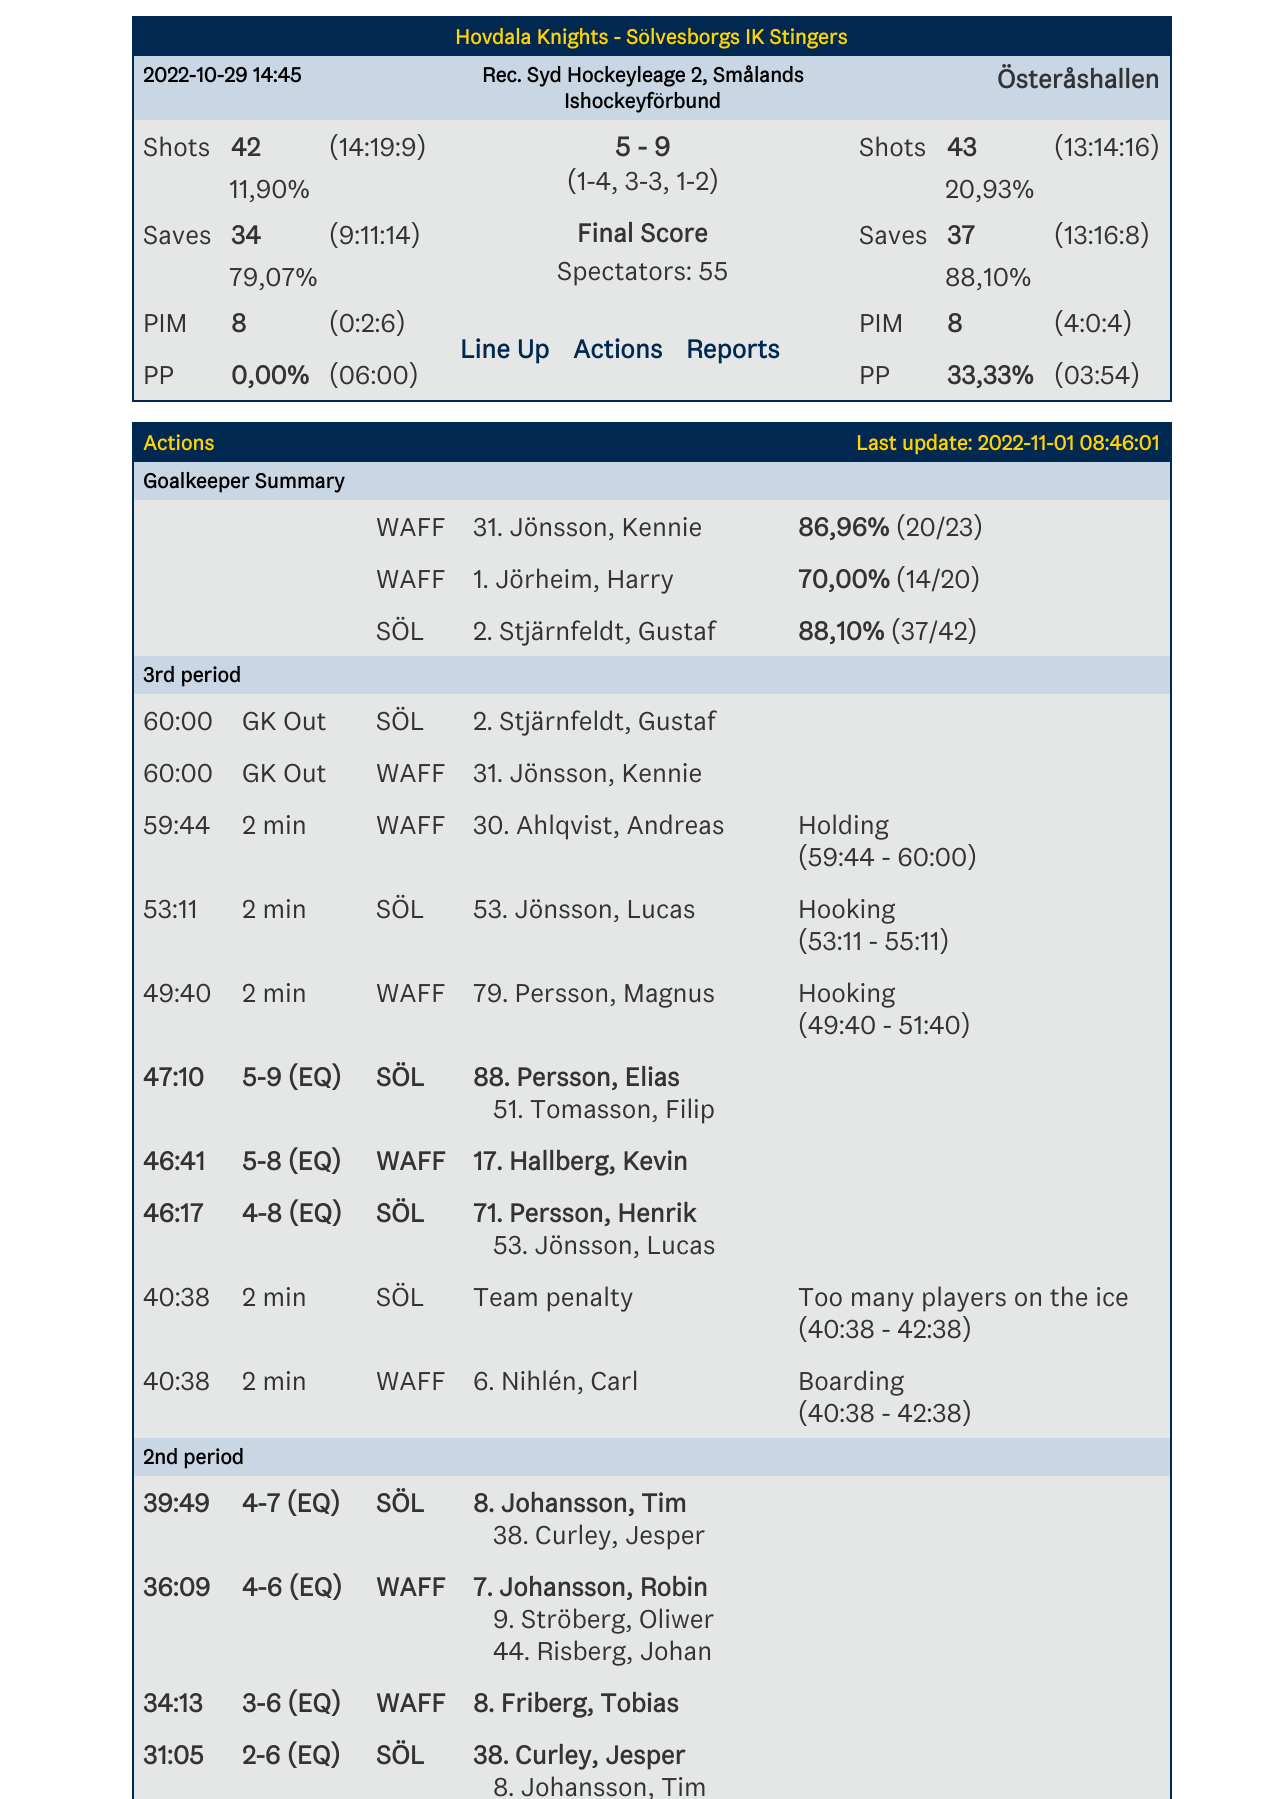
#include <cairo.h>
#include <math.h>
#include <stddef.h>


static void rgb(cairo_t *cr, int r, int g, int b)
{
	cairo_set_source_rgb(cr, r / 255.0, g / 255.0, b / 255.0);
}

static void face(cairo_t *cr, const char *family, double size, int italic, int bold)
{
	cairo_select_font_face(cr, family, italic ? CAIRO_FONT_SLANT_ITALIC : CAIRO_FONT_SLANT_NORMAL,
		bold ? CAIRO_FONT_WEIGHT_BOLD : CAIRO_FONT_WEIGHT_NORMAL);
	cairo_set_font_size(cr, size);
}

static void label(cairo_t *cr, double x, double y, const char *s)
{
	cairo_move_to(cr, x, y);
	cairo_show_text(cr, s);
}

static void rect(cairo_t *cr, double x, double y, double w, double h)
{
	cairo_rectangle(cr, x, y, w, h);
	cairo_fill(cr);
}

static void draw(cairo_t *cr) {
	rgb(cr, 255, 255, 255);
	cairo_paint(cr);
	rgb(cr, 0, 40, 80);
	rect(cr, 132, 16, 1040, 2);
	rect(cr, 1170, 16, 2, 386);
	rect(cr, 132, 400, 1040, 2);
	rect(cr, 132, 16, 2, 386);
	rect(cr, 134, 18, 1036, 38);
	face(cr, "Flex", 21.3, 0, 1);
	rgb(cr, 255, 211, 0);
	label(cr, 455, 44, "Hovdala Knights - Sölvesborgs IK Stingers");
	rgb(cr, 201, 214, 228);
	rect(cr, 134, 56, 1036, 64);
	rgb(cr, 0, 0, 0);
	label(cr, 143, 82, "2022-10-29 14:45");
	label(cr, 482, 82, "Rec. Syd Hockeyleage 2, Smålands");
	label(cr, 564, 108, "Ishockeyförbund");
	face(cr, "Flex", 26.75, 0, 1);
	rgb(cr, 51, 51, 51);
	label(cr, 997, 88, "Österåshallen");
	rgb(cr, 228, 231, 230);
	rect(cr, 134, 120, 302, 52);
	face(cr, "Flex", 26.75, 0, 0);
	rgb(cr, 51, 51, 51);
	label(cr, 143, 156, "Shots");
	face(cr, "Flex", 26.75, 0, 1);
	label(cr, 231, 156, "42");
	face(cr, "Flex", 26.75, 0, 0);
	label(cr, 329, 156, "(14:19:9)");
	rgb(cr, 228, 231, 230);
	rect(cr, 436, 120, 414, 280);
	face(cr, "Flex", 28, 0, 1);
	rgb(cr, 51, 51, 51);
	label(cr, 615, 156, "5 - 9");
	face(cr, "Flex", 26.75, 0, 0);
	label(cr, 567, 190, "(1-4, 3-3, 1-2)");
	face(cr, "Flex", 26.75, 0, 1);
	label(cr, 577, 242, "Final Score");
	face(cr, "Flex", 26.75, 0, 0);
	label(cr, 557, 280, "Spectators: 55");
	rgb(cr, 228, 231, 230);
	rect(cr, 850, 120, 320, 52);
	rgb(cr, 51, 51, 51);
	label(cr, 859, 156, "Shots");
	face(cr, "Flex", 26.75, 0, 1);
	label(cr, 947, 156, "43");
	face(cr, "Flex", 26.75, 0, 0);
	label(cr, 1054, 156, "(13:14:16)");
	rgb(cr, 228, 231, 230);
	rect(cr, 134, 172, 302, 36);
	rect(cr, 850, 172, 320, 36);
	rgb(cr, 51, 51, 51);
	label(cr, 229, 198, "11,90%");
	label(cr, 945, 198, "20,93%");
	rgb(cr, 228, 231, 230);
	rect(cr, 134, 208, 302, 52);
	rgb(cr, 51, 51, 51);
	label(cr, 143, 244, "Saves");
	face(cr, "Flex", 26.75, 0, 1);
	label(cr, 231, 244, "34");
	face(cr, "Flex", 26.75, 0, 0);
	label(cr, 329, 244, "(9:11:14)");
	rgb(cr, 228, 231, 230);
	rect(cr, 850, 208, 320, 52);
	rgb(cr, 51, 51, 51);
	label(cr, 859, 244, "Saves");
	face(cr, "Flex", 26.75, 0, 1);
	label(cr, 947, 244, "37");
	face(cr, "Flex", 26.75, 0, 0);
	label(cr, 1054, 244, "(13:16:8)");
	rgb(cr, 228, 231, 230);
	rect(cr, 134, 260, 302, 36);
	rect(cr, 850, 260, 320, 36);
	rgb(cr, 51, 51, 51);
	label(cr, 229, 286, "79,07%");
	label(cr, 945, 286, "88,10%");
	rgb(cr, 228, 231, 230);
	rect(cr, 134, 296, 302, 52);
	rgb(cr, 51, 51, 51);
	label(cr, 143, 332, "PIM");
	face(cr, "Flex", 26.75, 0, 1);
	label(cr, 231, 332, "8");
	face(cr, "Flex", 26.75, 0, 0);
	label(cr, 329, 332, "(0:2:6)");
	rgb(cr, 228, 231, 230);
	rect(cr, 850, 296, 320, 52);
	rgb(cr, 51, 51, 51);
	label(cr, 859, 332, "PIM");
	face(cr, "Flex", 26.75, 0, 1);
	label(cr, 947, 332, "8");
	face(cr, "Flex", 26.75, 0, 0);
	label(cr, 1054, 332, "(4:0:4)");
	face(cr, "Flex", 26.75, 0, 1);
	rgb(cr, 0, 40, 80);
	label(cr, 460, 358, "Line Up");
	label(cr, 573, 358, "Actions");
	label(cr, 686, 358, "Reports");
	rgb(cr, 228, 231, 230);
	rect(cr, 134, 348, 302, 52);
	face(cr, "Flex", 26.75, 0, 0);
	rgb(cr, 51, 51, 51);
	label(cr, 143, 384, "PP");
	face(cr, "Flex", 26.75, 0, 1);
	label(cr, 231, 384, "0,00%");
	face(cr, "Flex", 26.75, 0, 0);
	label(cr, 329, 384, "(06:00)");
	rgb(cr, 228, 231, 230);
	rect(cr, 850, 348, 320, 52);
	rgb(cr, 51, 51, 51);
	label(cr, 859, 384, "PP");
	face(cr, "Flex", 26.75, 0, 1);
	label(cr, 947, 384, "33,33%");
	face(cr, "Flex", 26.75, 0, 0);
	label(cr, 1054, 384, "(03:54)");
	rgb(cr, 0, 40, 80);
	rect(cr, 132, 422, 1040, 2);
	rect(cr, 1170, 422, 2, 1377);
	rect(cr, 132, 422, 2, 1377);
	rect(cr, 134, 424, 1036, 38);
	face(cr, "Flex", 21.3, 0, 1);
	rgb(cr, 255, 211, 0);
	label(cr, 143, 450, "Actions");
	label(cr, 856, 450, "Last update: 2022-11-01 08:46:01");
	rgb(cr, 201, 214, 228);
	rect(cr, 134, 462, 1036, 38);
	rgb(cr, 0, 0, 0);
	label(cr, 143, 488, "Goalkeeper Summary");
	rgb(cr, 228, 231, 230);
	rect(cr, 134, 500, 1036, 52);
	face(cr, "Flex", 26.75, 0, 0);
	rgb(cr, 51, 51, 51);
	label(cr, 376, 536, "WAFF");
	label(cr, 473, 536, "31. Jönsson, Kennie");
	face(cr, "Flex", 26.75, 0, 1);
	label(cr, 798, 536, "86,96%");
	face(cr, "Flex", 26.75, 0, 0);
	label(cr, 896, 536, "(20/23)");
	rgb(cr, 228, 231, 230);
	rect(cr, 134, 552, 1036, 52);
	rgb(cr, 51, 51, 51);
	label(cr, 376, 588, "WAFF");
	label(cr, 473, 588, "1. Jörheim, Harry");
	face(cr, "Flex", 26.75, 0, 1);
	label(cr, 798, 588, "70,00%");
	face(cr, "Flex", 26.75, 0, 0);
	label(cr, 896, 588, "(14/20)");
	rgb(cr, 228, 231, 230);
	rect(cr, 134, 604, 1036, 52);
	rgb(cr, 51, 51, 51);
	label(cr, 376, 640, "SÖL");
	label(cr, 473, 640, "2. Stjärnfeldt, Gustaf");
	face(cr, "Flex", 26.75, 0, 1);
	label(cr, 798, 640, "88,10%");
	face(cr, "Flex", 26.75, 0, 0);
	label(cr, 891, 640, "(37/42)");
	rgb(cr, 201, 214, 228);
	rect(cr, 134, 656, 1036, 38);
	face(cr, "Flex", 21.3, 0, 1);
	rgb(cr, 0, 0, 0);
	label(cr, 143, 682, "3rd period");
	rgb(cr, 228, 231, 230);
	rect(cr, 134, 694, 1036, 52);
	face(cr, "Flex", 26.75, 0, 0);
	rgb(cr, 51, 51, 51);
	label(cr, 143, 730, "60:00");
	label(cr, 242, 730, "GK Out");
	label(cr, 376, 730, "SÖL");
	label(cr, 473, 730, "2. Stjärnfeldt, Gustaf");
	rgb(cr, 228, 231, 230);
	rect(cr, 134, 746, 1036, 52);
	rgb(cr, 51, 51, 51);
	label(cr, 143, 782, "60:00");
	label(cr, 242, 782, "GK Out");
	label(cr, 376, 782, "WAFF");
	label(cr, 473, 782, "31. Jönsson, Kennie");
	rgb(cr, 228, 231, 230);
	rect(cr, 134, 798, 1036, 84);
	rgb(cr, 51, 51, 51);
	label(cr, 143, 834, "59:44");
	label(cr, 242, 834, "2 min");
	label(cr, 376, 834, "WAFF");
	label(cr, 473, 834, "30. Ahlqvist, Andreas");
	label(cr, 798, 834, "Holding");
	label(cr, 798, 866, "(59:44 - 60:00)");
	rgb(cr, 228, 231, 230);
	rect(cr, 134, 882, 1036, 84);
	rgb(cr, 51, 51, 51);
	label(cr, 143, 918, "53:11");
	label(cr, 242, 918, "2 min");
	label(cr, 376, 918, "SÖL");
	label(cr, 473, 918, "53. Jönsson, Lucas");
	label(cr, 798, 918, "Hooking");
	label(cr, 798, 950, "(53:11 - 55:11)");
	rgb(cr, 228, 231, 230);
	rect(cr, 134, 966, 1036, 84);
	rgb(cr, 51, 51, 51);
	label(cr, 143, 1002, "49:40");
	label(cr, 242, 1002, "2 min");
	label(cr, 376, 1002, "WAFF");
	label(cr, 473, 1002, "79. Persson, Magnus");
	label(cr, 798, 1002, "Hooking");
	label(cr, 798, 1034, "(49:40 - 51:40)");
	rgb(cr, 228, 231, 230);
	rect(cr, 134, 1050, 1036, 84);
	face(cr, "Flex", 26.75, 0, 1);
	rgb(cr, 51, 51, 51);
	label(cr, 143, 1086, "47:10");
	label(cr, 242, 1086, "5-9 (EQ)");
	label(cr, 376, 1086, "SÖL");
	label(cr, 473, 1086, "88. Persson, Elias");
	face(cr, "Flex", 26.75, 0, 0);
	label(cr, 493, 1118, "51. Tomasson, Filip");
	rgb(cr, 228, 231, 230);
	rect(cr, 134, 1134, 1036, 52);
	face(cr, "Flex", 26.75, 0, 1);
	rgb(cr, 51, 51, 51);
	label(cr, 143, 1170, "46:41");
	label(cr, 242, 1170, "5-8 (EQ)");
	label(cr, 376, 1170, "WAFF");
	label(cr, 473, 1170, "17. Hallberg, Kevin");
	rgb(cr, 228, 231, 230);
	rect(cr, 134, 1186, 1036, 84);
	rgb(cr, 51, 51, 51);
	label(cr, 143, 1222, "46:17");
	label(cr, 242, 1222, "4-8 (EQ)");
	label(cr, 376, 1222, "SÖL");
	label(cr, 473, 1222, "71. Persson, Henrik");
	face(cr, "Flex", 26.75, 0, 0);
	label(cr, 493, 1254, "53. Jönsson, Lucas");
	rgb(cr, 228, 231, 230);
	rect(cr, 134, 1270, 1036, 84);
	rgb(cr, 51, 51, 51);
	label(cr, 143, 1306, "40:38");
	label(cr, 242, 1306, "2 min");
	label(cr, 376, 1306, "SÖL");
	label(cr, 473, 1306, "Team penalty");
	label(cr, 798, 1306, "Too many players on the ice");
	label(cr, 798, 1338, "(40:38 - 42:38)");
	rgb(cr, 228, 231, 230);
	rect(cr, 134, 1354, 1036, 84);
	rgb(cr, 51, 51, 51);
	label(cr, 143, 1390, "40:38");
	label(cr, 242, 1390, "2 min");
	label(cr, 376, 1390, "WAFF");
	label(cr, 473, 1390, "6. Nihlén, Carl");
	label(cr, 798, 1390, "Boarding");
	label(cr, 798, 1422, "(40:38 - 42:38)");
	rgb(cr, 201, 214, 228);
	rect(cr, 134, 1438, 1036, 38);
	face(cr, "Flex", 21.3, 0, 1);
	rgb(cr, 0, 0, 0);
	label(cr, 143, 1464, "2nd period");
	rgb(cr, 228, 231, 230);
	rect(cr, 134, 1476, 1036, 84);
	face(cr, "Flex", 26.75, 0, 1);
	rgb(cr, 51, 51, 51);
	label(cr, 143, 1512, "39:49");
	label(cr, 242, 1512, "4-7 (EQ)");
	label(cr, 376, 1512, "SÖL");
	label(cr, 473, 1512, "8. Johansson, Tim");
	face(cr, "Flex", 26.75, 0, 0);
	label(cr, 493, 1544, "38. Curley, Jesper");
	rgb(cr, 228, 231, 230);
	rect(cr, 134, 1560, 1036, 116);
	face(cr, "Flex", 26.75, 0, 1);
	rgb(cr, 51, 51, 51);
	label(cr, 143, 1596, "36:09");
	label(cr, 242, 1596, "4-6 (EQ)");
	label(cr, 376, 1596, "WAFF");
	label(cr, 473, 1596, "7. Johansson, Robin");
	face(cr, "Flex", 26.75, 0, 0);
	label(cr, 493, 1628, "9. Ströberg, Oliwer");
	label(cr, 493, 1660, "44. Risberg, Johan");
	rgb(cr, 228, 231, 230);
	rect(cr, 134, 1676, 1036, 52);
	face(cr, "Flex", 26.75, 0, 1);
	rgb(cr, 51, 51, 51);
	label(cr, 143, 1712, "34:13");
	label(cr, 242, 1712, "3-6 (EQ)");
	label(cr, 376, 1712, "WAFF");
	label(cr, 473, 1712, "8. Friberg, Tobias");
	rgb(cr, 228, 231, 230);
	rect(cr, 134, 1728, 1036, 71);
	rgb(cr, 51, 51, 51);
	label(cr, 143, 1764, "31:05");
	label(cr, 242, 1764, "2-6 (EQ)");
	label(cr, 376, 1764, "SÖL");
	label(cr, 473, 1764, "38. Curley, Jesper");
	face(cr, "Flex", 26.75, 0, 0);
	label(cr, 493, 1796, "8. Johansson, Tim");
}

int main(void) {
	cairo_surface_t *surface = cairo_image_surface_create(CAIRO_FORMAT_RGB24, 1282, 1799);
	cairo_t *cr = cairo_create(surface);
	cairo_font_options_t *options = cairo_font_options_create();
	cairo_font_options_set_hint_metrics(options, CAIRO_HINT_METRICS_OFF);
	cairo_font_options_set_hint_style(options, CAIRO_HINT_STYLE_NONE);
	cairo_set_font_options(cr, options);
	cairo_set_miter_limit(cr, 4);
	draw(cr);
	cairo_surface_write_to_png(surface, "render.png");
	cairo_font_options_destroy(options);
	cairo_destroy(cr);
	cairo_surface_destroy(surface);
	return 0;
}
